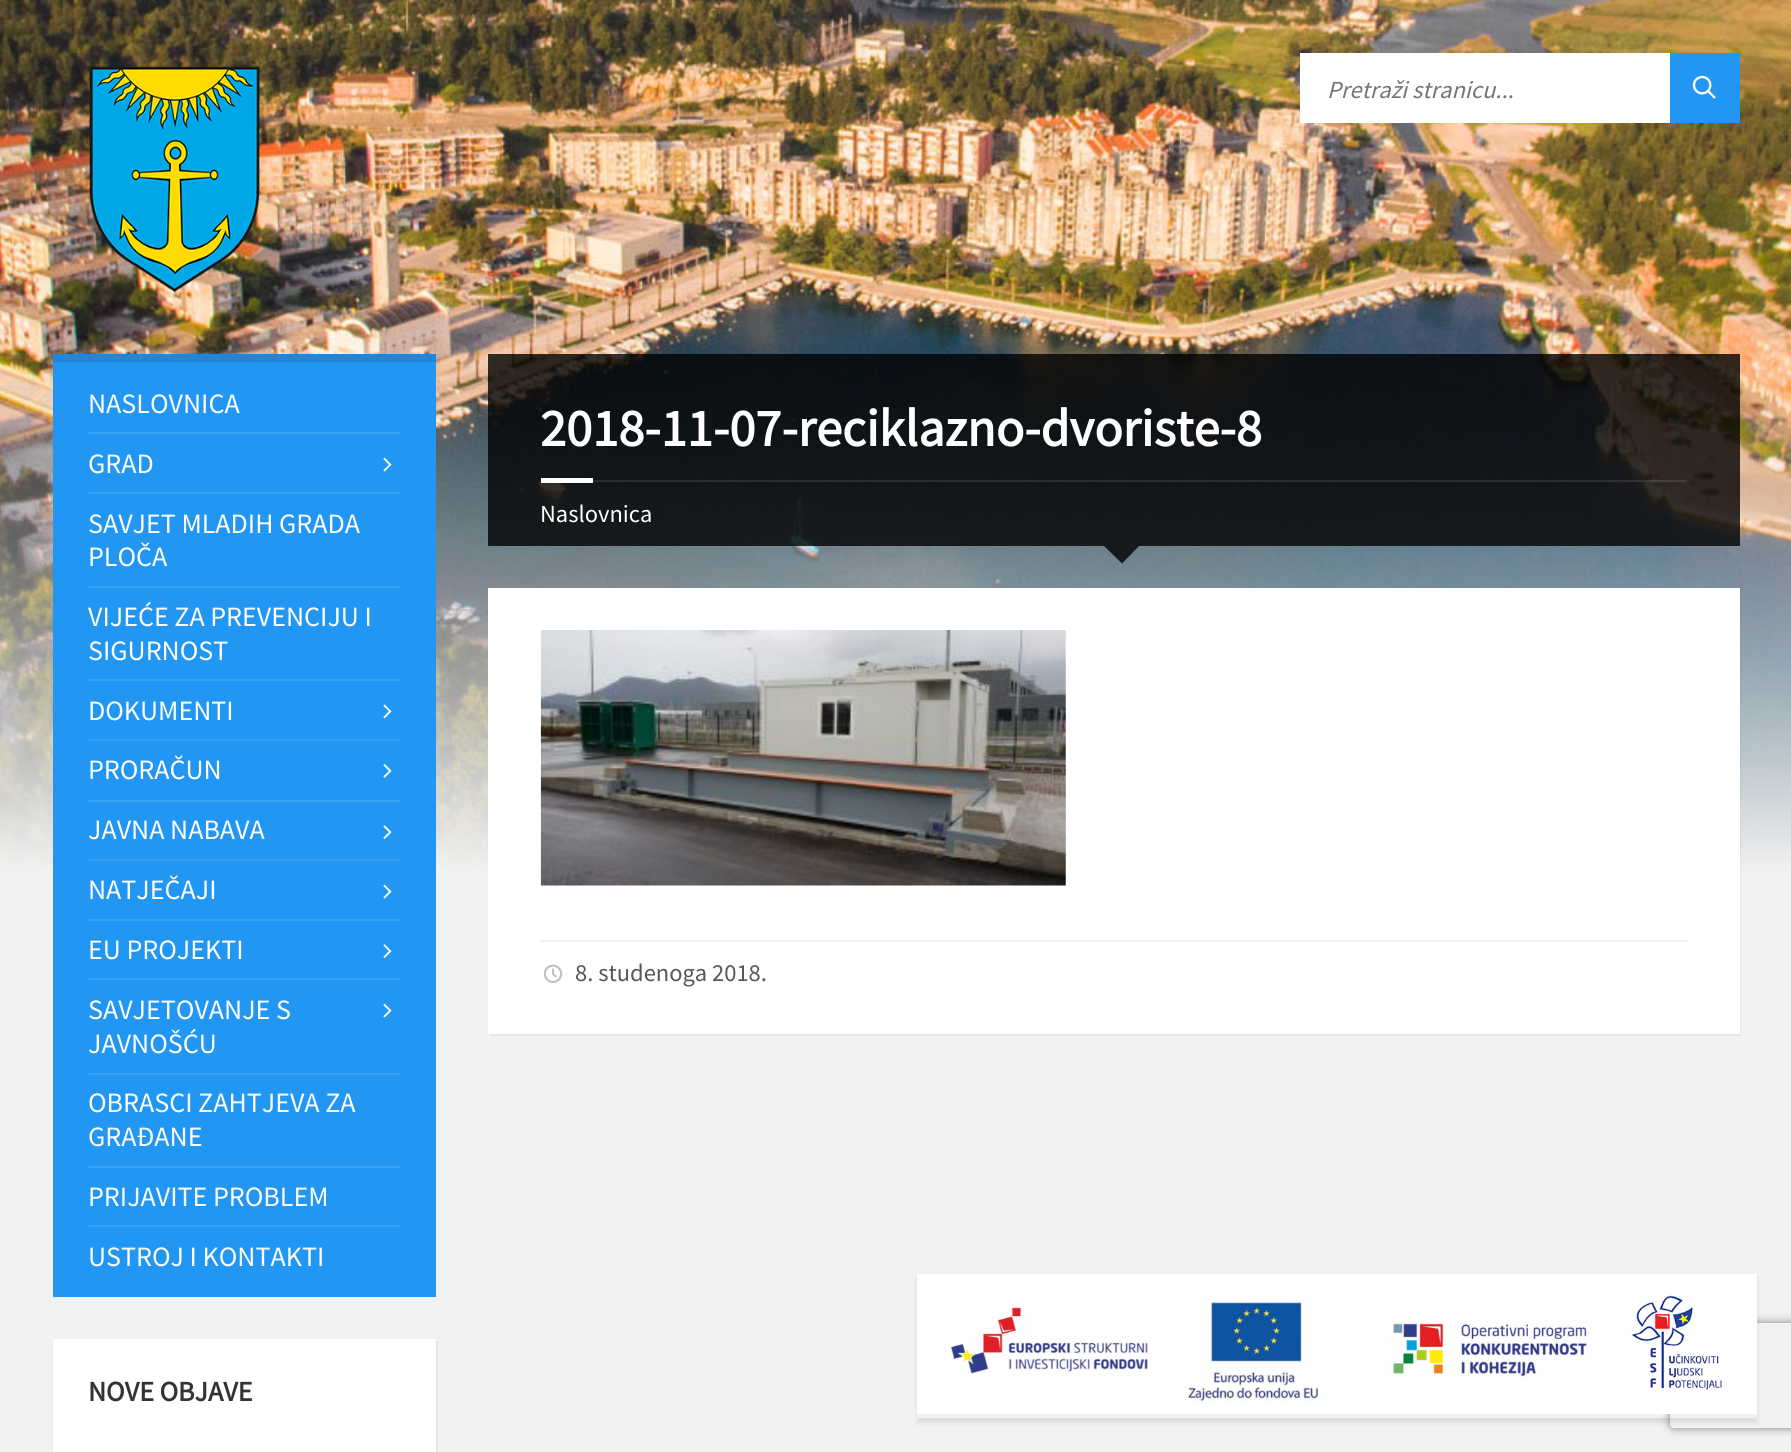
#include <cairo.h>
#include <math.h>
#include <stddef.h>


static void rgb(cairo_t *cr, int r, int g, int b)
{
	cairo_set_source_rgb(cr, r / 255.0, g / 255.0, b / 255.0);
}

static void face(cairo_t *cr, const char *family, double size, int italic, int bold)
{
	cairo_select_font_face(cr, family, italic ? CAIRO_FONT_SLANT_ITALIC : CAIRO_FONT_SLANT_NORMAL,
		bold ? CAIRO_FONT_WEIGHT_BOLD : CAIRO_FONT_WEIGHT_NORMAL);
	cairo_set_font_size(cr, size);
}

static void label(cairo_t *cr, double x, double y, const char *s)
{
	cairo_move_to(cr, x, y);
	cairo_show_text(cr, s);
}

static void rect(cairo_t *cr, double x, double y, double w, double h)
{
	cairo_rectangle(cr, x, y, w, h);
	cairo_fill(cr);
}

static void rrect(cairo_t *cr, double x, double y, double w, double h, double r)
{
	cairo_new_sub_path(cr);
	cairo_arc(cr, x + w - r, y + h - r, r, 0, M_PI / 2);
	cairo_arc(cr, x + r, y + h - r, r, M_PI / 2, M_PI);
	cairo_arc(cr, x + r, y + r, r, M_PI, 1.5 * M_PI);
	cairo_arc(cr, x + w - r, y + r, r, 1.5 * M_PI, 2 * M_PI);
	cairo_close_path(cr);
}

static void soft_shadow(cairo_t *cr, double x, double y, double w, double h, double r, double blur, double alpha)
{
	cairo_push_group_with_content(cr, CAIRO_CONTENT_ALPHA);
	cairo_set_operator(cr, CAIRO_OPERATOR_SOURCE);
	for (int i = 15; i >= -15 && fmin(w, h) + blur * i / 3 > 0; i -= 2) {
		double e = blur * i / 6;
		cairo_set_source_rgba(cr, 0, 0, 0, alpha * erfc((i - 1) / 8.5) / 2);
		rrect(cr, x - e, y - e, w + 2 * e, h + 2 * e, fmax(0, fmin(r + e + blur * .6, fmin(w, h) / 2 + e)));
		cairo_fill(cr);
	}
	cairo_pattern_t *soft = cairo_pop_group(cr);
	cairo_mask(cr, soft);
	cairo_pattern_destroy(soft);
}

static void image(cairo_t *cr, const char *path, double x, double y, double w, double h)
{
	cairo_surface_t *image = cairo_image_surface_create_from_png(path);
	cairo_save(cr);
	cairo_set_source_surface(cr, image, x, y);
	cairo_rectangle(cr, x, y, w, h);
	cairo_fill(cr);
	cairo_restore(cr);
	cairo_surface_destroy(image);
}

static void draw(cairo_t *cr) {
	rgb(cr, 242, 242, 242);
	cairo_paint(cr);
	image(cr, "image0.png", 0, 0, 1791, 875);
	image(cr, "image1.png", 89, 66, 171, 226);
	rgb(cr, 255, 255, 255);
	rect(cr, 1300, 53, 370, 70);
	face(cr, "Source Sans Pro", 24.5, 1, 0);
	rgb(cr, 117, 117, 117);
	label(cr, 1327, 98, "Pretraži stranicu...");
	rgb(cr, 33, 150, 243);
	rect(cr, 1670, 53, 70, 70);
	image(cr, "image2.png", 1692, 75, 24, 24);
	rect(cr, 53, 362, 383, 935);
	rgb(cr, 30, 135, 219);
	rect(cr, 53, 354, 383, 8);
	face(cr, "Source Sans Pro", 28, 0, 0);
	rgb(cr, 255, 255, 255);
	label(cr, 88, 413, "NASLOVNICA");
	rgb(cr, 55, 161, 244);
	rect(cr, 88, 432, 313, 2);
	rgb(cr, 255, 255, 255);
	label(cr, 88, 473, "GRAD");
	image(cr, "image3.png", 383, 457, 9, 15);
	rgb(cr, 55, 161, 244);
	rect(cr, 88, 492, 313, 2);
	rgb(cr, 255, 255, 255);
	label(cr, 88, 533, "SAVJET MLADIH GRADA");
	label(cr, 88, 566, "PLOČA");
	rgb(cr, 55, 161, 244);
	rect(cr, 88, 586, 313, 2);
	rgb(cr, 255, 255, 255);
	label(cr, 88, 626, "VIJEĆE ZA PREVENCIJU I");
	label(cr, 88, 660, "SIGURNOST");
	rgb(cr, 55, 161, 244);
	rect(cr, 88, 679, 313, 2);
	rgb(cr, 255, 255, 255);
	label(cr, 88, 720, "DOKUMENTI");
	image(cr, "image4.png", 383, 704, 9, 15);
	rgb(cr, 55, 161, 244);
	rect(cr, 88, 739, 313, 2);
	rgb(cr, 255, 255, 255);
	label(cr, 88, 779, "PRORAČUN");
	image(cr, "image5.png", 383, 764, 9, 14);
	rgb(cr, 55, 161, 244);
	rect(cr, 88, 800, 313, 2);
	rgb(cr, 255, 255, 255);
	label(cr, 88, 839, "JAVNA NABAVA");
	image(cr, "image6.png", 383, 825, 9, 14);
	rgb(cr, 55, 161, 244);
	rect(cr, 88, 859, 313, 2);
	rgb(cr, 255, 255, 255);
	label(cr, 88, 899, "NATJEČAJI");
	image(cr, "image3.png", 383, 884, 9, 15);
	rgb(cr, 55, 161, 244);
	rect(cr, 88, 919, 313, 2);
	rgb(cr, 255, 255, 255);
	label(cr, 88, 959, "EU PROJEKTI");
	image(cr, "image6.png", 383, 944, 9, 14);
	rgb(cr, 55, 161, 244);
	rect(cr, 88, 978, 313, 2);
	rgb(cr, 255, 255, 255);
	label(cr, 88, 1019, "SAVJETOVANJE S");
	image(cr, "image3.png", 383, 1003, 9, 15);
	label(cr, 88, 1053, "JAVNOŠĆU");
	rgb(cr, 55, 161, 244);
	rect(cr, 88, 1073, 313, 2);
	rgb(cr, 255, 255, 255);
	label(cr, 88, 1112, "OBRASCI ZAHTJEVA ZA");
	label(cr, 88, 1146, "GRAĐANE");
	rgb(cr, 55, 161, 244);
	rect(cr, 88, 1166, 313, 2);
	rgb(cr, 255, 255, 255);
	label(cr, 88, 1206, "PRIJAVITE PROBLEM");
	rgb(cr, 55, 161, 244);
	rect(cr, 88, 1225, 313, 2);
	rgb(cr, 255, 255, 255);
	label(cr, 88, 1266, "USTROJ I KONTAKTI");
	rgb(cr, 230, 230, 230);
	cairo_new_path(cr);
	cairo_move_to(cr, 54, 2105);
	cairo_line_to(cr, 54, 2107);
	cairo_line_to(cr, 438, 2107);
	cairo_line_to(cr, 438, 1341);
	cairo_line_to(cr, 436, 1341);
	cairo_line_to(cr, 436, 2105);
	cairo_close_path(cr);
	cairo_fill(cr);
	rgb(cr, 255, 255, 255);
	rect(cr, 53, 1339, 383, 113);
	face(cr, "Source Sans Pro", 28, 0, 1);
	rgb(cr, 51, 51, 51);
	label(cr, 88, 1401, "NOVE OBJAVE");
	cairo_set_source_rgba(cr, 0, 0, 0, 0.8);
	rect(cr, 488, 354, 1252, 192);
	cairo_set_source_rgba(cr, 1, 1, 1, 0.1);
	rect(cr, 593, 480, 1094, 2);
	face(cr, "Source Sans Pro", 52.5, 0, 1);
	rgb(cr, 255, 255, 255);
	label(cr, 540, 446, "2018-11-07-reciklazno-dvoriste-8");
	rect(cr, 541, 478, 52, 5);
	face(cr, "Source Sans Pro", 24.5, 0, 0);
	label(cr, 540, 522, "Naslovnica");
	cairo_set_source_rgba(cr, 0, 0, 0, 0.8);
	cairo_new_path(cr);
	cairo_move_to(cr, 1104, 546);
	cairo_line_to(cr, 1139, 546);
	cairo_line_to(cr, 1122, 563.5);
	cairo_close_path(cr);
	cairo_fill(cr);
	cairo_set_source_rgba(cr, 0, 0, 0, 0.05);
	cairo_new_path(cr);
	cairo_move_to(cr, 490, 1034);
	cairo_line_to(cr, 490, 1036);
	cairo_line_to(cr, 1741, 1036);
	cairo_line_to(cr, 1741, 590);
	cairo_line_to(cr, 1740, 590);
	cairo_line_to(cr, 1740, 1034);
	cairo_close_path(cr);
	cairo_fill(cr);
	rgb(cr, 255, 255, 255);
	rect(cr, 488, 588, 1252, 446);
	image(cr, "image7.png", 540, 630, 526, 256);
	rgb(cr, 240, 240, 240);
	rect(cr, 541, 940, 1146, 2);
	image(cr, "image8.png", 543, 964, 20, 19);
	rgb(cr, 86, 86, 86);
	label(cr, 575, 981, "8. studenoga 2018.");
	cairo_save(cr);
	cairo_set_fill_rule(cr, CAIRO_FILL_RULE_EVEN_ODD);
	cairo_new_path(cr);
	cairo_move_to(cr, 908, 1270);
	cairo_line_to(cr, 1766, 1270);
	cairo_line_to(cr, 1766, 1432);
	cairo_line_to(cr, 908, 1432);
	cairo_close_path(cr);
	cairo_move_to(cr, 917, 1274);
	cairo_line_to(cr, 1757, 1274);
	cairo_line_to(cr, 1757, 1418);
	cairo_line_to(cr, 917, 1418);
	cairo_close_path(cr);
	cairo_clip(cr);
	rgb(cr, 0, 0, 0);
	soft_shadow(cr, 917, 1279, 840, 144, 0, 2.5, 0.1);
	cairo_restore(cr);
	cairo_save(cr);
	cairo_set_fill_rule(cr, CAIRO_FILL_RULE_EVEN_ODD);
	cairo_new_path(cr);
	cairo_move_to(cr, 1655, 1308);
	cairo_line_to(cr, 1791, 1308);
	cairo_line_to(cr, 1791, 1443);
	cairo_line_to(cr, 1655, 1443);
	cairo_close_path(cr);
	cairo_move_to(cr, 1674, 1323);
	cairo_line_to(cr, 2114, 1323);
	cairo_curve_to(cr, 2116, 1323, 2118, 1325, 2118, 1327);
	cairo_line_to(cr, 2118, 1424);
	cairo_curve_to(cr, 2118, 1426, 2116, 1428, 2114, 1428);
	cairo_line_to(cr, 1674, 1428);
	cairo_curve_to(cr, 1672, 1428, 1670, 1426, 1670, 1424);
	cairo_line_to(cr, 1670, 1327);
	cairo_curve_to(cr, 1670, 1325, 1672, 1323, 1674, 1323);
	cairo_close_path(cr);
	cairo_clip(cr);
	rgb(cr, 128, 128, 128);
	soft_shadow(cr, 1670, 1323, 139, 105, 4, 4.5, 1);
	cairo_restore(cr);
	image(cr, "image9.png", 917, 1274, 840, 140);
}

int main(void) {
	cairo_surface_t *surface = cairo_image_surface_create(CAIRO_FORMAT_RGB24, 1791, 1452);
	cairo_t *cr = cairo_create(surface);
	cairo_font_options_t *options = cairo_font_options_create();
	cairo_font_options_set_hint_metrics(options, CAIRO_HINT_METRICS_OFF);
	cairo_font_options_set_hint_style(options, CAIRO_HINT_STYLE_NONE);
	cairo_set_font_options(cr, options);
	cairo_set_miter_limit(cr, 4);
	draw(cr);
	cairo_surface_write_to_png(surface, "render.png");
	cairo_font_options_destroy(options);
	cairo_destroy(cr);
	cairo_surface_destroy(surface);
	return 0;
}
